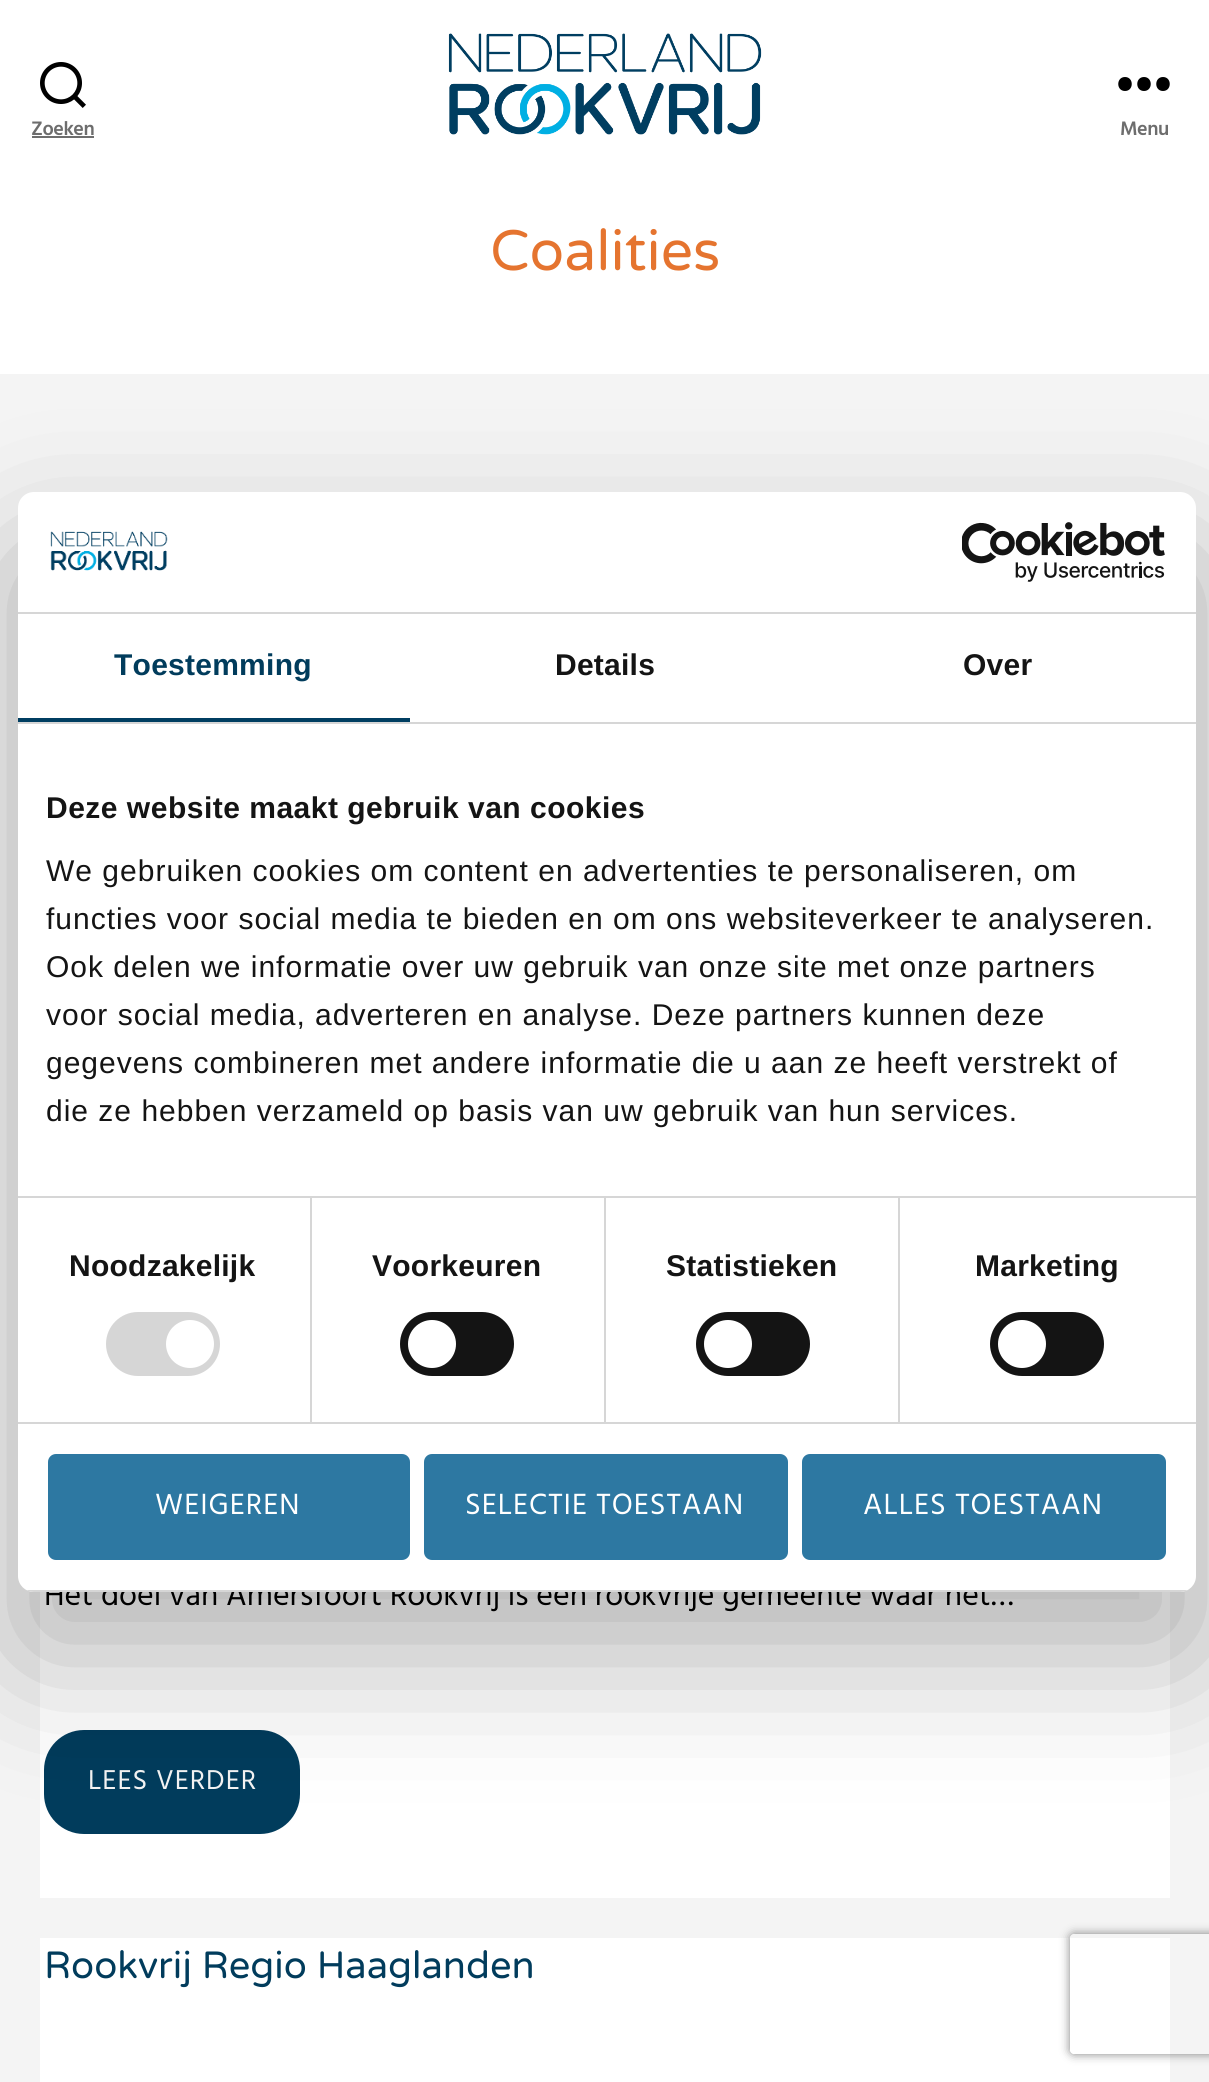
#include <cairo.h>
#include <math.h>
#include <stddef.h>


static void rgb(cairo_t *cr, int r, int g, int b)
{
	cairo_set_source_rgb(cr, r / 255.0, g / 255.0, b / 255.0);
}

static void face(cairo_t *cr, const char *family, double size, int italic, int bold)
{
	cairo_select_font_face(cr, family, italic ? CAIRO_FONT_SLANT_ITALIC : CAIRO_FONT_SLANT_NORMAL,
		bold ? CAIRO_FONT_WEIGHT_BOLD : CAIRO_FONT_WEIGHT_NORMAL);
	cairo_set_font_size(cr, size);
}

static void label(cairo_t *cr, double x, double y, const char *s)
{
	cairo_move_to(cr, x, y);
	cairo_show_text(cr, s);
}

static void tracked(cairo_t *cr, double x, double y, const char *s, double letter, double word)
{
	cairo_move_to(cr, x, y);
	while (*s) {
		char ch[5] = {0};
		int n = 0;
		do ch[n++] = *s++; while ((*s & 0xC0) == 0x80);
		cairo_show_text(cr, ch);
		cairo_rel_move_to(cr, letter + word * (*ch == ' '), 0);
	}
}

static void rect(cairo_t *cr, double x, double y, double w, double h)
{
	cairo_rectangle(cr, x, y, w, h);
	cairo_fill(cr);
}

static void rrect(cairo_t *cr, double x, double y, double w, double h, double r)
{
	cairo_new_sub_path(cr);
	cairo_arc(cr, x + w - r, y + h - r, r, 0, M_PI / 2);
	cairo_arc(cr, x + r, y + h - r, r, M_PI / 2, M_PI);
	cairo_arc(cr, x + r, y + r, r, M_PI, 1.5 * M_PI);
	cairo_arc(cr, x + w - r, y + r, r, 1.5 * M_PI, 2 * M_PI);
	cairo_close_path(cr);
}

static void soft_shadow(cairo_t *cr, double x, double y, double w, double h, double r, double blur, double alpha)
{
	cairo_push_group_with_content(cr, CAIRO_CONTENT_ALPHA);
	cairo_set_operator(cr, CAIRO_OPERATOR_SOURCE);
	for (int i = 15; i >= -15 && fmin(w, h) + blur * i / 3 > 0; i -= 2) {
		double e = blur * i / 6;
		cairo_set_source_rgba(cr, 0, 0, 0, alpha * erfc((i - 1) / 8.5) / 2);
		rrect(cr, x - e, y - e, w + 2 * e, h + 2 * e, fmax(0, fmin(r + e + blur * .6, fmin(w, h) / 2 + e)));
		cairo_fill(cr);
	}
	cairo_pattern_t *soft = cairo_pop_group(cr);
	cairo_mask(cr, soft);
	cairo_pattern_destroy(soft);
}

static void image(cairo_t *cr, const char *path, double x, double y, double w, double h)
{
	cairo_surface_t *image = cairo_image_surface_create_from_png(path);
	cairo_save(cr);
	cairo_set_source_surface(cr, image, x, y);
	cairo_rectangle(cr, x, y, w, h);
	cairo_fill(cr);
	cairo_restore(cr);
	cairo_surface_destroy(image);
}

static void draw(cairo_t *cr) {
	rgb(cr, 244, 244, 244);
	cairo_paint(cr);
	rgb(cr, 255, 255, 255);
	rect(cr, 0, 0, 1209, 374);
	image(cr, "image0.png", 40, 62, 46, 46);
	face(cr, "Hind SemiBold", 20, 0, 0);
	rgb(cr, 109, 109, 109);
	tracked(cr, 31, 135, "Zoeken", -0.5, 0);
	rect(cr, 32, 136, 62, 2);
	image(cr, "image1.png", 448, 33, 314, 102);
	rgb(cr, 0, 0, 0);
	cairo_set_fill_rule(cr, CAIRO_FILL_RULE_EVEN_ODD);
	cairo_new_path(cr);
	cairo_move_to(cr, 1125, 91);
	cairo_curve_to(cr, 1116, 91, 1116, 77, 1125, 77);
	cairo_curve_to(cr, 1134, 77, 1134, 91, 1125, 91);
	cairo_close_path(cr);
	cairo_move_to(cr, 1144, 91);
	cairo_curve_to(cr, 1135, 91, 1135, 77, 1144, 77);
	cairo_curve_to(cr, 1153, 77, 1153, 91, 1144, 91);
	cairo_close_path(cr);
	cairo_move_to(cr, 1163, 91);
	cairo_curve_to(cr, 1154, 91, 1154, 77, 1163, 77);
	cairo_curve_to(cr, 1172, 77, 1172, 91, 1163, 91);
	cairo_close_path(cr);
	cairo_fill(cr);
	rgb(cr, 109, 109, 109);
	tracked(cr, 1120, 135, "Menu", -0.5, 0);
	face(cr, "Varela Round", 57, 0, 0);
	rgb(cr, 229, 116, 47);
	label(cr, 490, 270, "Coalities");
	rgb(cr, 255, 255, 255);
	rect(cr, 40, 1592, 1130, 306);
	face(cr, "Hind", 32, 0, 0);
	rgb(cr, 0, 0, 0);
	label(cr, 44, 1605, "Het doel van Amersfoort Rookvrij is een rookvrije gemeente waar het…");
	rgb(cr, 1, 60, 92);
	rrect(cr, 46, 1732, 252, 100, 38);
	cairo_fill_preserve(cr);
	cairo_set_line_width(cr, 4);
	cairo_stroke(cr);
	face(cr, "Hind", 28, 0, 0);
	rgb(cr, 244, 244, 244);
	tracked(cr, 88, 1789, "LEES VERDER", 1, 0);
	rgb(cr, 255, 255, 255);
	rect(cr, 40, 1938, 1130, 144);
	face(cr, "Varela Round", 38, 0, 0);
	rgb(cr, 1, 60, 92);
	label(cr, 44, 1978, "Rookvrij Regio Haaglanden");
	rgb(cr, 0, 0, 0);
	soft_shadow(cr, 18, 556, 1178, 1100, 16, 68, 0.3);
	rgb(cr, 255, 255, 255);
	rrect(cr, 18, 492, 1178, 1100, 16);
	cairo_fill(cr);
	rgb(cr, 214, 214, 214);
	rect(cr, 18, 612, 1178, 2);
	image(cr, "image2.png", 50, 531, 118, 40);
	image(cr, "image3.png", 962, 522, 203, 60);
	rect(cr, 18, 722, 1178, 2);
	rgb(cr, 0, 62, 97);
	rect(cr, 18, 718, 392, 4);
	face(cr, "Liberation Sans", 30, 0, 1);
	rgb(cr, 1, 60, 92);
	tracked(cr, 114, 675, "Toestemming", 0.25, 0);
	rgb(cr, 20, 20, 20);
	tracked(cr, 555, 675, "Details", 0.25, 0);
	tracked(cr, 963, 675, "Over", 0.25, 0);
	rgb(cr, 214, 214, 214);
	rect(cr, 18, 1196, 1178, 2);
	rgb(cr, 20, 20, 20);
	tracked(cr, 46, 818, "Deze website maakt gebruik van cookies", 0.5, 0);
	face(cr, "Liberation Sans", 30, 0, 0);
	tracked(cr, 46, 881, "We gebruiken cookies om content en advertenties te personaliseren, om", 1, 0);
	tracked(cr, 46, 929, "functies voor social media te bieden en om ons websiteverkeer te analyseren.", 1, 0);
	tracked(cr, 46, 977, "Ook delen we informatie over uw gebruik van onze site met onze partners", 1, 0);
	tracked(cr, 46, 1025, "voor social media, adverteren en analyse. Deze partners kunnen deze", 1, 0);
	tracked(cr, 46, 1073, "gegevens combineren met andere informatie die u aan ze heeft verstrekt of", 1, 0);
	tracked(cr, 46, 1121, "die ze hebben verzameld op basis van uw gebruik van hun services.", 1, 0);
	rgb(cr, 214, 214, 214);
	rect(cr, 18, 1422, 1178, 2);
	rect(cr, 310, 1198, 2, 224);
	face(cr, "Liberation Sans", 30, 0, 1);
	rgb(cr, 20, 20, 20);
	tracked(cr, 69, 1276, "Noodzakelijk", 0.25, 0);
	rgb(cr, 214, 214, 214);
	rrect(cr, 106, 1312, 114, 64, 32);
	cairo_fill(cr);
	rgb(cr, 255, 255, 255);
	cairo_arc(cr, 190, 1344, 24, 0, 2 * M_PI);
	cairo_fill(cr);
	rgb(cr, 214, 214, 214);
	rect(cr, 604, 1198, 2, 224);
	rgb(cr, 20, 20, 20);
	tracked(cr, 372, 1276, "Voorkeuren", 0.25, 0);
	rrect(cr, 400, 1312, 114, 64, 32);
	cairo_fill(cr);
	rgb(cr, 255, 255, 255);
	cairo_arc(cr, 432, 1344, 24, 0, 2 * M_PI);
	cairo_fill(cr);
	rgb(cr, 214, 214, 214);
	rect(cr, 898, 1198, 2, 224);
	rgb(cr, 20, 20, 20);
	tracked(cr, 666, 1276, "Statistieken", 0.25, 0);
	rrect(cr, 696, 1312, 114, 64, 32);
	cairo_fill(cr);
	rgb(cr, 255, 255, 255);
	cairo_arc(cr, 728, 1344, 24, 0, 2 * M_PI);
	cairo_fill(cr);
	rgb(cr, 20, 20, 20);
	tracked(cr, 975, 1276, "Marketing", 0.25, 0);
	rrect(cr, 990, 1312, 114, 64, 32);
	cairo_fill(cr);
	rgb(cr, 255, 255, 255);
	cairo_arc(cr, 1022, 1344, 24, 0, 2 * M_PI);
	cairo_fill(cr);
	cairo_save(cr);
	cairo_set_fill_rule(cr, CAIRO_FILL_RULE_WINDING);
	rrect(cr, 18, 492, 1178, 1100, 16);
	cairo_clip(cr);
	rgb(cr, 214, 214, 214);
	rect(cr, 18, 1590, 1178, 2);
	cairo_restore(cr);
	rgb(cr, 45, 120, 162);
	rrect(cr, 50, 1456, 358, 102, 6);
	cairo_fill_preserve(cr);
	cairo_stroke(cr);
	face(cr, "Hind", 30, 0, 0);
	rgb(cr, 255, 255, 255);
	tracked(cr, 155, 1514, "WEIGEREN", 1, 0);
	rgb(cr, 45, 120, 162);
	rrect(cr, 426, 1456, 360, 102, 6);
	cairo_fill_preserve(cr);
	cairo_stroke(cr);
	rgb(cr, 255, 255, 255);
	tracked(cr, 465, 1514, "SELECTIE TOESTAAN", 1, 0);
	rgb(cr, 45, 120, 162);
	rrect(cr, 804, 1456, 360, 102, 6);
	cairo_fill_preserve(cr);
	cairo_stroke(cr);
	rgb(cr, 255, 255, 255);
	tracked(cr, 863, 1514, "ALLES TOESTAAN", 1, 0);
	cairo_save(cr);
	cairo_new_path(cr);
	cairo_move_to(cr, 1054, 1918);
	cairo_line_to(cr, 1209, 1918);
	cairo_line_to(cr, 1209, 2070);
	cairo_line_to(cr, 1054, 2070);
	cairo_close_path(cr);
	cairo_move_to(cr, 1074, 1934);
	cairo_line_to(cr, 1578, 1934);
	cairo_curve_to(cr, 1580, 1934, 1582, 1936, 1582, 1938);
	cairo_line_to(cr, 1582, 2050);
	cairo_curve_to(cr, 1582, 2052, 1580, 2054, 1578, 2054);
	cairo_line_to(cr, 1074, 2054);
	cairo_curve_to(cr, 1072, 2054, 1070, 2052, 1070, 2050);
	cairo_line_to(cr, 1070, 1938);
	cairo_curve_to(cr, 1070, 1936, 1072, 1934, 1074, 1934);
	cairo_close_path(cr);
	cairo_clip(cr);
	rgb(cr, 128, 128, 128);
	soft_shadow(cr, 1070, 1934, 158, 120, 4, 5, 1);
	cairo_restore(cr);
}

int main(void) {
	cairo_surface_t *surface = cairo_image_surface_create(CAIRO_FORMAT_RGB24, 1209, 2082);
	cairo_t *cr = cairo_create(surface);
	cairo_font_options_t *options = cairo_font_options_create();
	cairo_font_options_set_hint_metrics(options, CAIRO_HINT_METRICS_OFF);
	cairo_font_options_set_hint_style(options, CAIRO_HINT_STYLE_NONE);
	cairo_set_font_options(cr, options);
	cairo_set_miter_limit(cr, 4);
	draw(cr);
	cairo_surface_write_to_png(surface, "render.png");
	cairo_font_options_destroy(options);
	cairo_destroy(cr);
	cairo_surface_destroy(surface);
	return 0;
}
